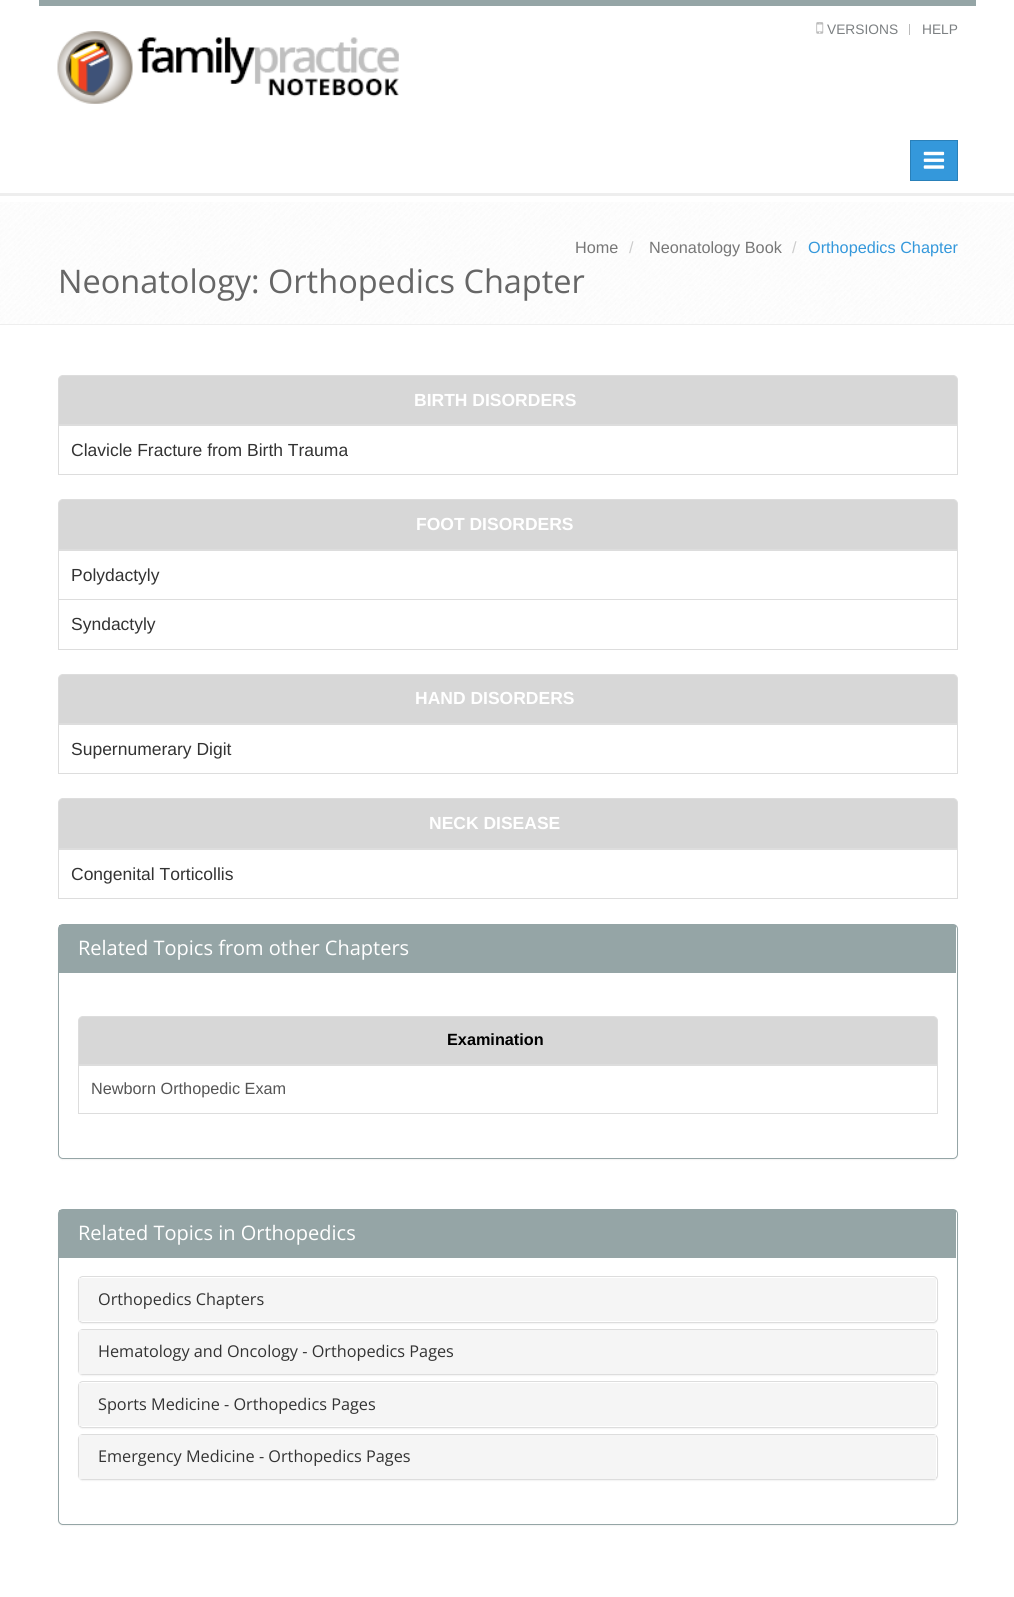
#include <cairo.h>
#include <math.h>
#include <stddef.h>


static void rgb(cairo_t *cr, int r, int g, int b)
{
	cairo_set_source_rgb(cr, r / 255.0, g / 255.0, b / 255.0);
}

static void face(cairo_t *cr, const char *family, double size, int italic, int bold)
{
	cairo_select_font_face(cr, family, italic ? CAIRO_FONT_SLANT_ITALIC : CAIRO_FONT_SLANT_NORMAL,
		bold ? CAIRO_FONT_WEIGHT_BOLD : CAIRO_FONT_WEIGHT_NORMAL);
	cairo_set_font_size(cr, size);
}

static void label(cairo_t *cr, double x, double y, const char *s)
{
	cairo_move_to(cr, x, y);
	cairo_show_text(cr, s);
}

static void rect(cairo_t *cr, double x, double y, double w, double h)
{
	cairo_rectangle(cr, x, y, w, h);
	cairo_fill(cr);
}

static void rrect(cairo_t *cr, double x, double y, double w, double h, double r)
{
	cairo_new_sub_path(cr);
	cairo_arc(cr, x + w - r, y + h - r, r, 0, M_PI / 2);
	cairo_arc(cr, x + r, y + h - r, r, M_PI / 2, M_PI);
	cairo_arc(cr, x + r, y + r, r, M_PI, 1.5 * M_PI);
	cairo_arc(cr, x + w - r, y + r, r, 1.5 * M_PI, 2 * M_PI);
	cairo_close_path(cr);
}

static void soft_shadow(cairo_t *cr, double x, double y, double w, double h, double r, double blur, double alpha)
{
	cairo_push_group_with_content(cr, CAIRO_CONTENT_ALPHA);
	cairo_set_operator(cr, CAIRO_OPERATOR_SOURCE);
	for (int i = 15; i >= -15 && fmin(w, h) + blur * i / 3 > 0; i -= 2) {
		double e = blur * i / 6;
		cairo_set_source_rgba(cr, 0, 0, 0, alpha * erfc((i - 1) / 8.5) / 2);
		rrect(cr, x - e, y - e, w + 2 * e, h + 2 * e, fmax(0, fmin(r + e + blur * .6, fmin(w, h) / 2 + e)));
		cairo_fill(cr);
	}
	cairo_pattern_t *soft = cairo_pop_group(cr);
	cairo_mask(cr, soft);
	cairo_pattern_destroy(soft);
}

static void image(cairo_t *cr, const char *path, double x, double y, double w, double h)
{
	cairo_surface_t *image = cairo_image_surface_create_from_png(path);
	cairo_save(cr);
	cairo_set_source_surface(cr, image, x, y);
	cairo_rectangle(cr, x, y, w, h);
	cairo_fill(cr);
	cairo_restore(cr);
	cairo_surface_destroy(image);
}

static void draw(cairo_t *cr) {
	rgb(cr, 255, 255, 255);
	cairo_paint(cr);
	rgb(cr, 149, 165, 166);
	rect(cr, 39, 0, 937, 6);
	rgb(cr, 238, 238, 238);
	rect(cr, 0, 193, 1014, 3);
	image(cr, "image0.png", 816, 22, 8, 12);
	face(cr, "Liberation Sans", 13.75, 0, 0);
	rgb(cr, 124, 128, 130);
	label(cr, 827, 34, "VERSIONS");
	rgb(cr, 187, 187, 187);
	rect(cr, 909, 24, 1, 11);
	rgb(cr, 124, 128, 130);
	label(cr, 922, 34, "HELP");
	image(cr, "image1.png", 57, 31, 342, 73);
	rgb(cr, 52, 152, 219);
	cairo_rectangle(cr, 910.5, 140.5, 47, 40);
	cairo_fill_preserve(cr);
	rgb(cr, 41, 128, 185);
	cairo_set_line_width(cr, 1);
	cairo_stroke(cr);
	image(cr, "image2.png", 923, 151, 22, 18);
	image(cr, "image3.png", 0, 202, 1014, 122);
	rgb(cr, 238, 238, 238);
	rect(cr, 0, 324, 1014, 1);
	face(cr, "Liberation Sans", 16.25, 0, 0);
	rgb(cr, 119, 119, 119);
	label(cr, 575, 253, "Home");
	rgb(cr, 204, 204, 204);
	label(cr, 629, 253, "/");
	rgb(cr, 119, 119, 119);
	label(cr, 649, 253, "Neonatology Book");
	rgb(cr, 204, 204, 204);
	label(cr, 792, 253, "/");
	rgb(cr, 52, 152, 219);
	label(cr, 808, 253, "Orthopedics Chapter");
	face(cr, "Open Sans", 32.5, 0, 0);
	rgb(cr, 102, 102, 102);
	label(cr, 58, 293, "Neonatology: Orthopedics Chapter");
	rgb(cr, 215, 215, 215);
	cairo_new_path(cr);
	cairo_move_to(cr, 63, 375.5);
	cairo_line_to(cr, 953, 375.5);
	cairo_curve_to(cr, 955.5, 375.5, 957.5, 377.5, 957.5, 380);
	cairo_line_to(cr, 957.5, 424.5);
	cairo_line_to(cr, 58.5, 424.5);
	cairo_line_to(cr, 58.5, 380);
	cairo_curve_to(cr, 58.5, 377.5, 60.5, 375.5, 63, 375.5);
	cairo_close_path(cr);
	cairo_fill_preserve(cr);
	rgb(cr, 221, 221, 221);
	cairo_stroke(cr);
	face(cr, "Liberation Sans", 17.5, 0, 1);
	rgb(cr, 255, 255, 255);
	label(cr, 414, 406, "BIRTH DISORDERS");
	cairo_rectangle(cr, 58.5, 425.5, 899, 49);
	rgb(cr, 221, 221, 221);
	cairo_stroke(cr);
	face(cr, "Liberation Sans", 17.5, 0, 0);
	rgb(cr, 51, 51, 51);
	label(cr, 71, 456, "Clavicle Fracture from Birth Trauma");
	rgb(cr, 215, 215, 215);
	cairo_new_path(cr);
	cairo_move_to(cr, 63, 499.5);
	cairo_line_to(cr, 953, 499.5);
	cairo_curve_to(cr, 955.5, 499.5, 957.5, 501.5, 957.5, 504);
	cairo_line_to(cr, 957.5, 549.5);
	cairo_line_to(cr, 58.5, 549.5);
	cairo_line_to(cr, 58.5, 504);
	cairo_curve_to(cr, 58.5, 501.5, 60.5, 499.5, 63, 499.5);
	cairo_close_path(cr);
	cairo_fill_preserve(cr);
	rgb(cr, 221, 221, 221);
	cairo_stroke(cr);
	face(cr, "Liberation Sans", 17.5, 0, 1);
	rgb(cr, 255, 255, 255);
	label(cr, 416, 530, "FOOT DISORDERS");
	cairo_rectangle(cr, 58.5, 550.5, 899, 49);
	rgb(cr, 221, 221, 221);
	cairo_stroke(cr);
	face(cr, "Liberation Sans", 17.5, 0, 0);
	rgb(cr, 51, 51, 51);
	label(cr, 71, 581, "Polydactyly");
	cairo_rectangle(cr, 58.5, 599.5, 899, 50);
	rgb(cr, 221, 221, 221);
	cairo_stroke(cr);
	rgb(cr, 51, 51, 51);
	label(cr, 71, 630, "Syndactyly");
	rgb(cr, 215, 215, 215);
	cairo_new_path(cr);
	cairo_move_to(cr, 63, 674.5);
	cairo_line_to(cr, 953, 674.5);
	cairo_curve_to(cr, 955.5, 674.5, 957.5, 676.5, 957.5, 679);
	cairo_line_to(cr, 957.5, 723.5);
	cairo_line_to(cr, 58.5, 723.5);
	cairo_line_to(cr, 58.5, 679);
	cairo_curve_to(cr, 58.5, 676.5, 60.5, 674.5, 63, 674.5);
	cairo_close_path(cr);
	cairo_fill_preserve(cr);
	rgb(cr, 221, 221, 221);
	cairo_stroke(cr);
	face(cr, "Liberation Sans", 17.5, 0, 1);
	rgb(cr, 255, 255, 255);
	label(cr, 415, 704, "HAND DISORDERS");
	cairo_rectangle(cr, 58.5, 724.5, 899, 49);
	rgb(cr, 221, 221, 221);
	cairo_stroke(cr);
	face(cr, "Liberation Sans", 17.5, 0, 0);
	rgb(cr, 51, 51, 51);
	label(cr, 71, 755, "Supernumerary Digit");
	rgb(cr, 215, 215, 215);
	cairo_new_path(cr);
	cairo_move_to(cr, 63, 798.5);
	cairo_line_to(cr, 953, 798.5);
	cairo_curve_to(cr, 955.5, 798.5, 957.5, 800.5, 957.5, 803);
	cairo_line_to(cr, 957.5, 848.5);
	cairo_line_to(cr, 58.5, 848.5);
	cairo_line_to(cr, 58.5, 803);
	cairo_curve_to(cr, 58.5, 800.5, 60.5, 798.5, 63, 798.5);
	cairo_close_path(cr);
	cairo_fill_preserve(cr);
	rgb(cr, 221, 221, 221);
	cairo_stroke(cr);
	face(cr, "Liberation Sans", 17.5, 0, 1);
	rgb(cr, 255, 255, 255);
	label(cr, 429, 829, "NECK DISEASE");
	cairo_rectangle(cr, 58.5, 849.5, 899, 49);
	rgb(cr, 221, 221, 221);
	cairo_stroke(cr);
	face(cr, "Liberation Sans", 17.5, 0, 0);
	rgb(cr, 51, 51, 51);
	label(cr, 71, 880, "Congenital Torticollis");
	rgb(cr, 0, 0, 0);
	soft_shadow(cr, 58, 925, 900, 235, 5, 0.5, 0.05);
	rgb(cr, 255, 255, 255);
	rrect(cr, 58.5, 924.5, 899, 234, 4.5);
	cairo_fill_preserve(cr);
	rgb(cr, 149, 165, 166);
	cairo_stroke(cr);
	rect(cr, 59, 925, 897, 48);
	face(cr, "Open Sans", 20, 0, 0);
	rgb(cr, 255, 255, 255);
	label(cr, 78, 955, "Related Topics from other Chapters");
	rgb(cr, 215, 215, 215);
	cairo_new_path(cr);
	cairo_move_to(cr, 83, 1016.5);
	cairo_line_to(cr, 933, 1016.5);
	cairo_curve_to(cr, 935.5, 1016.5, 937.5, 1018.5, 937.5, 1021);
	cairo_line_to(cr, 937.5, 1064.5);
	cairo_line_to(cr, 78.5, 1064.5);
	cairo_line_to(cr, 78.5, 1021);
	cairo_curve_to(cr, 78.5, 1018.5, 80.5, 1016.5, 83, 1016.5);
	cairo_close_path(cr);
	cairo_fill_preserve(cr);
	rgb(cr, 221, 221, 221);
	cairo_stroke(cr);
	face(cr, "Liberation Sans", 16.25, 0, 1);
	rgb(cr, 0, 0, 0);
	label(cr, 447, 1045, "Examination");
	cairo_rectangle(cr, 78.5, 1065.5, 859, 48);
	rgb(cr, 221, 221, 221);
	cairo_stroke(cr);
	face(cr, "Liberation Sans", 16.25, 0, 0);
	rgb(cr, 85, 85, 85);
	label(cr, 91, 1094, "Newborn Orthopedic Exam");
	rgb(cr, 0, 0, 0);
	soft_shadow(cr, 58, 1210, 900, 316, 5, 0.5, 0.05);
	rgb(cr, 255, 255, 255);
	rrect(cr, 58.5, 1209.5, 899, 315, 4.5);
	cairo_fill_preserve(cr);
	rgb(cr, 149, 165, 166);
	cairo_stroke(cr);
	rect(cr, 59, 1210, 897, 48);
	face(cr, "Open Sans", 20, 0, 0);
	rgb(cr, 255, 255, 255);
	label(cr, 78, 1240, "Related Topics in Orthopedics");
	rgb(cr, 0, 0, 0);
	soft_shadow(cr, 78, 1278, 860, 46, 5, 0.5, 0.05);
	rgb(cr, 255, 255, 255);
	rrect(cr, 78.5, 1276.5, 859, 46, 4.5);
	cairo_fill_preserve(cr);
	rgb(cr, 221, 221, 221);
	cairo_stroke(cr);
	rgb(cr, 245, 245, 245);
	rect(cr, 79, 1278, 857, 43);
	face(cr, "Open Sans", 16.25, 0, 0);
	rgb(cr, 51, 51, 51);
	label(cr, 98, 1305, "Orthopedics Chapters");
	rgb(cr, 0, 0, 0);
	soft_shadow(cr, 78, 1330, 860, 46, 5, 0.5, 0.05);
	rgb(cr, 255, 255, 255);
	rrect(cr, 78.5, 1329.5, 859, 45, 4.5);
	cairo_fill_preserve(cr);
	rgb(cr, 221, 221, 221);
	cairo_stroke(cr);
	rgb(cr, 245, 245, 245);
	rect(cr, 79, 1330, 857, 44);
	rgb(cr, 51, 51, 51);
	label(cr, 98, 1357, "Hematology and Oncology - Orthopedics Pages");
	rgb(cr, 0, 0, 0);
	soft_shadow(cr, 78, 1383, 860, 46, 5, 0.5, 0.05);
	rgb(cr, 255, 255, 255);
	rrect(cr, 78.5, 1381.5, 859, 46, 4.5);
	cairo_fill_preserve(cr);
	rgb(cr, 221, 221, 221);
	cairo_stroke(cr);
	rgb(cr, 245, 245, 245);
	rect(cr, 79, 1383, 857, 43);
	rgb(cr, 51, 51, 51);
	label(cr, 98, 1410, "Sports Medicine - Orthopedics Pages");
	rgb(cr, 0, 0, 0);
	soft_shadow(cr, 78, 1435, 860, 46, 5, 0.5, 0.05);
	rgb(cr, 255, 255, 255);
	rrect(cr, 78.5, 1434.5, 859, 45, 4.5);
	cairo_fill_preserve(cr);
	rgb(cr, 221, 221, 221);
	cairo_stroke(cr);
	rgb(cr, 245, 245, 245);
	rect(cr, 79, 1435, 857, 44);
	rgb(cr, 51, 51, 51);
	label(cr, 98, 1462, "Emergency Medicine - Orthopedics Pages");
}

int main(void) {
	cairo_surface_t *surface = cairo_image_surface_create(CAIRO_FORMAT_RGB24, 1014, 1597);
	cairo_t *cr = cairo_create(surface);
	cairo_font_options_t *options = cairo_font_options_create();
	cairo_font_options_set_hint_metrics(options, CAIRO_HINT_METRICS_OFF);
	cairo_font_options_set_hint_style(options, CAIRO_HINT_STYLE_NONE);
	cairo_set_font_options(cr, options);
	cairo_set_miter_limit(cr, 4);
	draw(cr);
	cairo_surface_write_to_png(surface, "render.png");
	cairo_font_options_destroy(options);
	cairo_destroy(cr);
	cairo_surface_destroy(surface);
	return 0;
}
